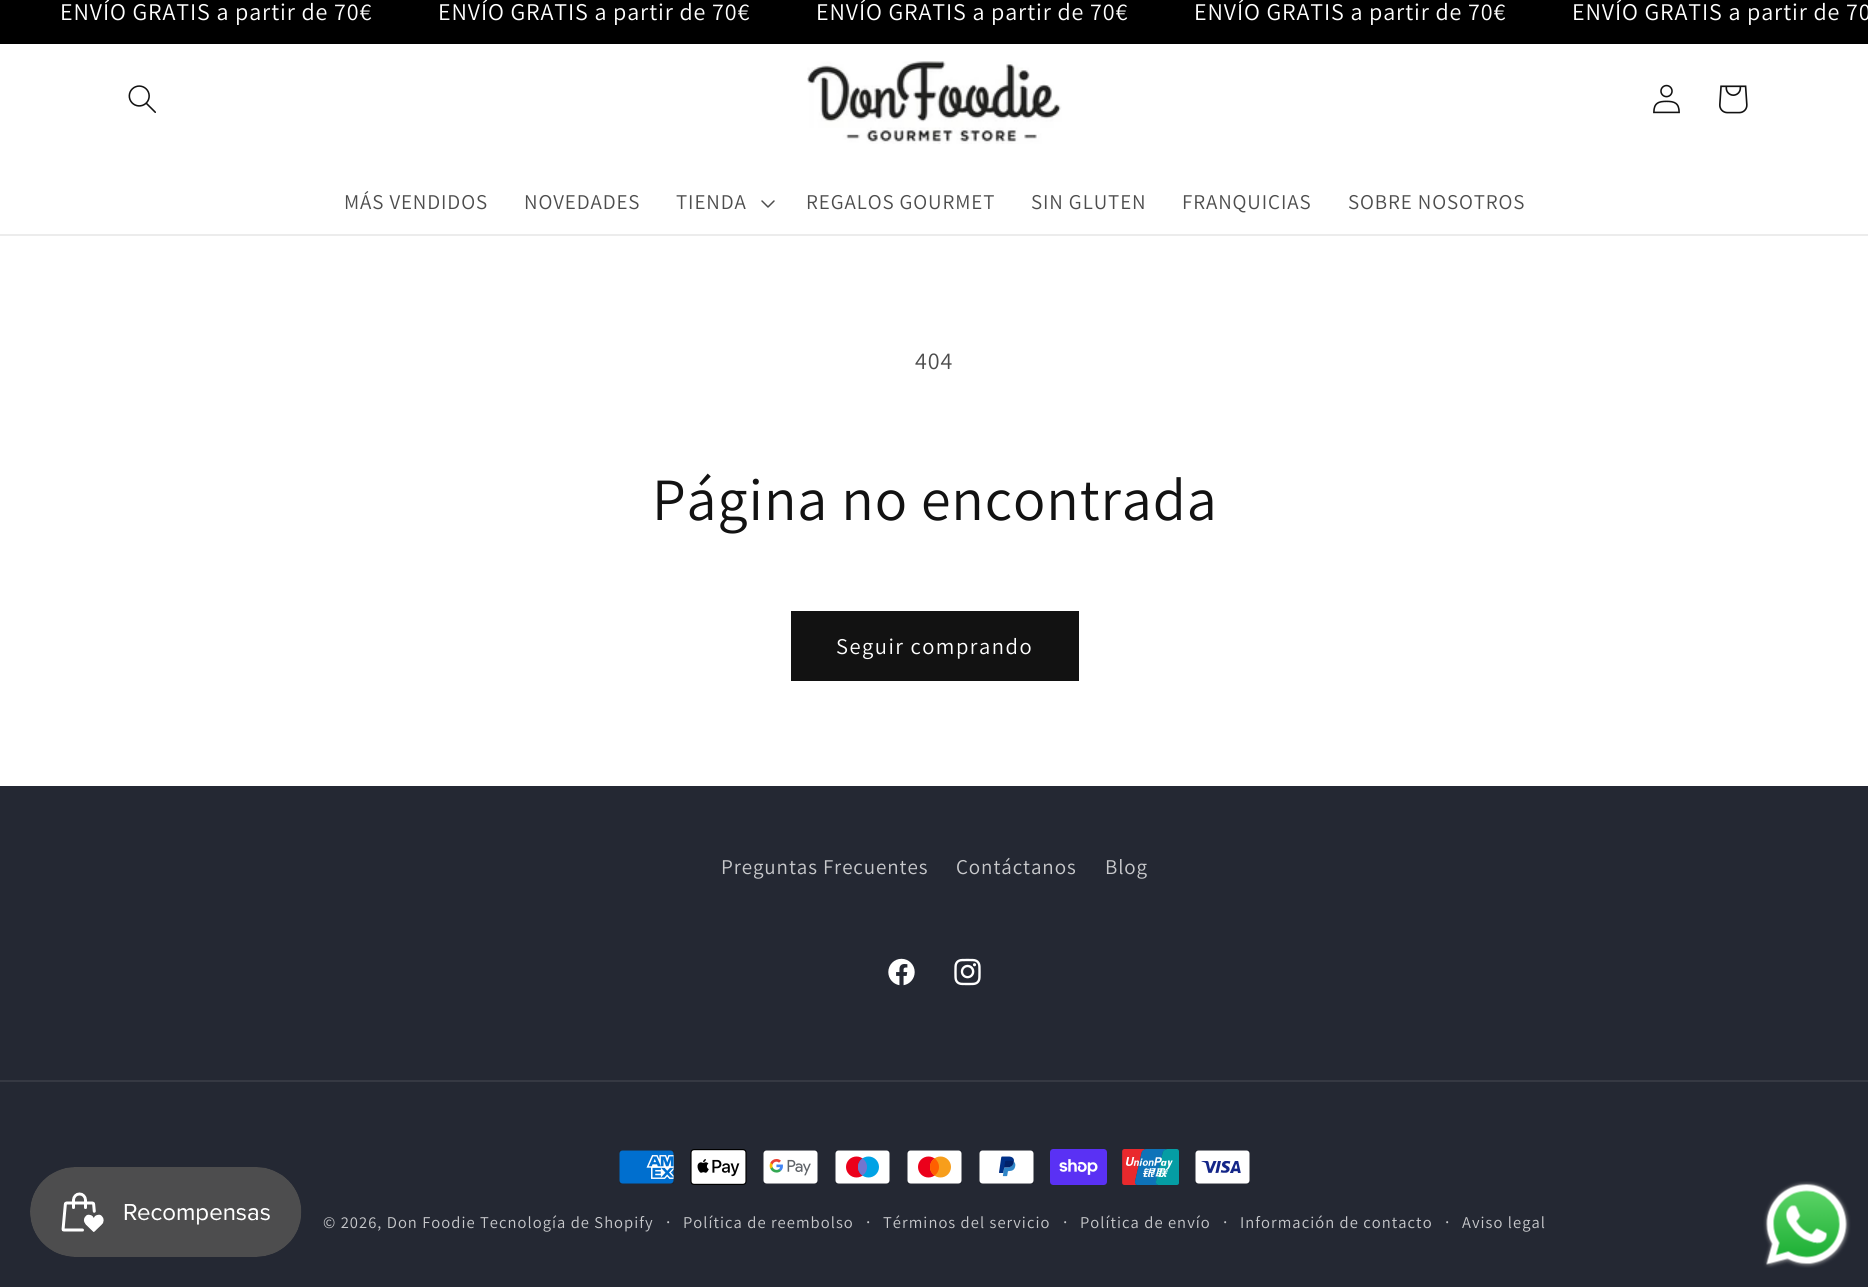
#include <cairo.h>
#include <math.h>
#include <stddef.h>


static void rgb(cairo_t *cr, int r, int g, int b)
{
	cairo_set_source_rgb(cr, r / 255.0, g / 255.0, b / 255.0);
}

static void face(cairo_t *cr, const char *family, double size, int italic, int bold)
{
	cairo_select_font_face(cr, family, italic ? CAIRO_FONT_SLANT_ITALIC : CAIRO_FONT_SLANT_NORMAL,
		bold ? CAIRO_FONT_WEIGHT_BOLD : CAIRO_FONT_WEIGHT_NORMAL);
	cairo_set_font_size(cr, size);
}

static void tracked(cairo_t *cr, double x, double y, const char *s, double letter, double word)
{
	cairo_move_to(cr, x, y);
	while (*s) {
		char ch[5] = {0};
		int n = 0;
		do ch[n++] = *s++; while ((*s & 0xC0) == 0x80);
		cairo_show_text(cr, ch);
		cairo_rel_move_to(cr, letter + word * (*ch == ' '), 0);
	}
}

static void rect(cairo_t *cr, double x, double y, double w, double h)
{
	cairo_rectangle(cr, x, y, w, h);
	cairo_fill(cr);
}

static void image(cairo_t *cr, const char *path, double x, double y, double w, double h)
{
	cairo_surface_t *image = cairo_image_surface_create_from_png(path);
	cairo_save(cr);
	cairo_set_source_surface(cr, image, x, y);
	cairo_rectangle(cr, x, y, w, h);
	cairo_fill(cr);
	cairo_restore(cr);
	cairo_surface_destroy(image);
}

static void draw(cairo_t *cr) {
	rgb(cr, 255, 255, 255);
	cairo_paint(cr);
	rgb(cr, 0, 0, 0);
	rect(cr, 0, 0, 1868, 44);
	face(cr, "Assistant", 24, 0, 0);
	rgb(cr, 255, 255, 255);
	tracked(cr, 60, 20, "ENVÍO GRATIS a partir de 70€", 0.9, 0);
	tracked(cr, 438, 20, "ENVÍO GRATIS a partir de 70€", 0.9, 0);
	tracked(cr, 816, 20, "ENVÍO GRATIS a partir de 70€", 0.9, 0);
	tracked(cr, 1194, 20, "ENVÍO GRATIS a partir de 70€", 0.9, 0);
	tracked(cr, 1572, 20, "ENVÍO GRATIS a partir de 70", 0.9, 0);
	rgb(cr, 236, 236, 236);
	rect(cr, 0, 234, 1868, 2);
	image(cr, "image0.png", 128, 85, 28, 28);
	image(cr, "image1.png", 807, 61, 255, 83);
	image(cr, "image2.png", 1653, 84, 27, 30);
	image(cr, "image3.png", 1719, 85, 29, 29);
	face(cr, "Assistant", 21, 0, 0);
	rgb(cr, 77, 77, 77);
	tracked(cr, 344, 209, "MÁS VENDIDOS", 0.9, 0);
	tracked(cr, 524, 209, "NOVEDADES", 0.9, 0);
	tracked(cr, 676, 209, "TIENDA", 0.9, 0);
	image(cr, "image4.png", 761, 200, 14, 8);
	tracked(cr, 806, 209, "REGALOS GOURMET", 0.9, 0);
	tracked(cr, 1031, 209, "SIN GLUTEN", 0.9, 0);
	tracked(cr, 1182, 209, "FRANQUICIAS", 0.9, 0);
	tracked(cr, 1348, 209, "SOBRE NOSOTROS", 0.9, 0);
	face(cr, "Assistant", 24, 0, 0);
	tracked(cr, 915, 369, "404", 0.9, 0);
	face(cr, "Assistant", 60, 0, 0);
	rgb(cr, 18, 18, 18);
	tracked(cr, 652, 520, "Página no encontrada", 0.9, 0);
	rect(cr, 791, 611, 288, 70);
	face(cr, "Assistant", 22.5, 0, 0);
	rgb(cr, 255, 255, 255);
	tracked(cr, 836, 654, "Seguir comprando", 1.5, 0);
	rgb(cr, 36, 40, 51);
	rect(cr, 0, 786, 1868, 501);
	image(cr, "image5.png", 30, 1167, 272, 90);
	face(cr, "Assistant", 21, 0, 0);
	rgb(cr, 200, 201, 204);
	tracked(cr, 721, 874, "Preguntas Frecuentes", 0.9, 0);
	tracked(cr, 956, 874, "Contáctanos", 0.9, 0);
	tracked(cr, 1105, 874, "Blog", 0.9, 0);
	image(cr, "image6.png", 888, 958, 27, 28);
	image(cr, "image7.png", 954, 958, 27, 28);
	rgb(cr, 54, 57, 67);
	rect(cr, 0, 1080, 1868, 2);
	image(cr, "image8.png", 619, 1150, 55, 34);
	image(cr, "image9.png", 690, 1149, 57, 36);
	image(cr, "image10.png", 763, 1150, 55, 34);
	image(cr, "image11.png", 835, 1150, 55, 34);
	image(cr, "image12.png", 907, 1150, 55, 34);
	image(cr, "image13.png", 979, 1150, 55, 34);
	image(cr, "image14.png", 1050, 1149, 57, 36);
	image(cr, "image15.png", 1122, 1149, 57, 36);
	image(cr, "image16.png", 1195, 1150, 55, 34);
	face(cr, "Assistant", 16.5, 0, 0);
	rgb(cr, 200, 201, 204);
	tracked(cr, 323, 1228, "© 2026, Don Foodie", 1.05, 0);
	tracked(cr, 480, 1228, "Tecnología de Shopify", 1.05, 0);
	face(cr, "Assistant", 18, 0, 0);
	tracked(cr, 666, 1228, "·", 1.05, 0);
	face(cr, "Assistant", 16.5, 0, 0);
	tracked(cr, 683, 1228, "Política de reembolso", 1.05, 0);
	face(cr, "Assistant", 18, 0, 0);
	tracked(cr, 866, 1228, "·", 1.05, 0);
	face(cr, "Assistant", 16.5, 0, 0);
	tracked(cr, 883, 1228, "Términos del servicio", 1.05, 0);
	face(cr, "Assistant", 18, 0, 0);
	tracked(cr, 1063, 1228, "·", 1.05, 0);
	face(cr, "Assistant", 16.5, 0, 0);
	tracked(cr, 1080, 1228, "Política de envío", 1.05, 0);
	face(cr, "Assistant", 18, 0, 0);
	tracked(cr, 1223, 1228, "·", 1.05, 0);
	face(cr, "Assistant", 16.5, 0, 0);
	tracked(cr, 1240, 1228, "Información de contacto", 1.05, 0);
	face(cr, "Assistant", 18, 0, 0);
	tracked(cr, 1445, 1228, "·", 1.05, 0);
	face(cr, "Assistant", 16.5, 0, 0);
	tracked(cr, 1462, 1228, "Aviso legal", 1.05, 0);
	image(cr, "image17.png", 1763, 1181, 88, 87);
}

int main(void) {
	cairo_surface_t *surface = cairo_image_surface_create(CAIRO_FORMAT_RGB24, 1868, 1287);
	cairo_t *cr = cairo_create(surface);
	cairo_font_options_t *options = cairo_font_options_create();
	cairo_font_options_set_hint_metrics(options, CAIRO_HINT_METRICS_OFF);
	cairo_font_options_set_hint_style(options, CAIRO_HINT_STYLE_NONE);
	cairo_set_font_options(cr, options);
	cairo_set_miter_limit(cr, 4);
	draw(cr);
	cairo_surface_write_to_png(surface, "render.png");
	cairo_font_options_destroy(options);
	cairo_destroy(cr);
	cairo_surface_destroy(surface);
	return 0;
}
